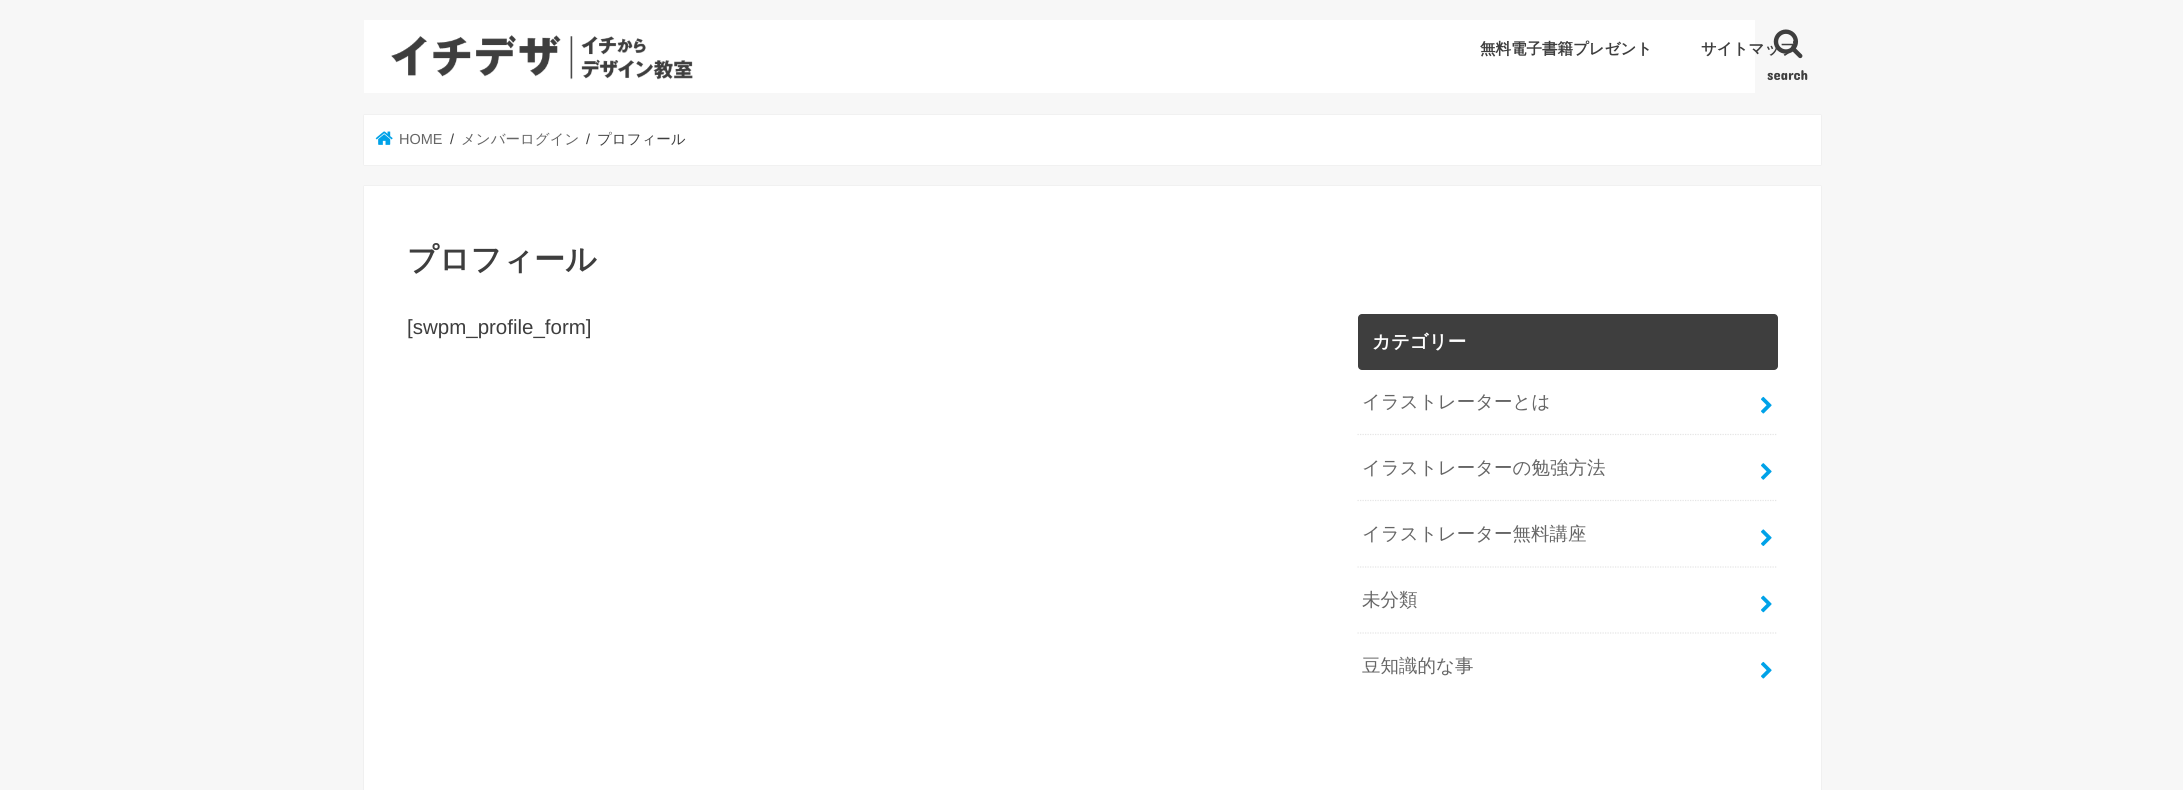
#include <cairo.h>
#include <math.h>
#include <stddef.h>


static void rgb(cairo_t *cr, int r, int g, int b)
{
	cairo_set_source_rgb(cr, r / 255.0, g / 255.0, b / 255.0);
}

static void face(cairo_t *cr, const char *family, double size, int italic, int bold)
{
	cairo_select_font_face(cr, family, italic ? CAIRO_FONT_SLANT_ITALIC : CAIRO_FONT_SLANT_NORMAL,
		bold ? CAIRO_FONT_WEIGHT_BOLD : CAIRO_FONT_WEIGHT_NORMAL);
	cairo_set_font_size(cr, size);
}

static void label(cairo_t *cr, double x, double y, const char *s)
{
	cairo_move_to(cr, x, y);
	cairo_show_text(cr, s);
}

static void rect(cairo_t *cr, double x, double y, double w, double h)
{
	cairo_rectangle(cr, x, y, w, h);
	cairo_fill(cr);
}

static void rrect(cairo_t *cr, double x, double y, double w, double h, double r)
{
	cairo_new_sub_path(cr);
	cairo_arc(cr, x + w - r, y + h - r, r, 0, M_PI / 2);
	cairo_arc(cr, x + r, y + h - r, r, M_PI / 2, M_PI);
	cairo_arc(cr, x + r, y + r, r, M_PI, 1.5 * M_PI);
	cairo_arc(cr, x + w - r, y + r, r, 1.5 * M_PI, 2 * M_PI);
	cairo_close_path(cr);
}

static void soft_shadow(cairo_t *cr, double x, double y, double w, double h, double r, double blur, double alpha)
{
	cairo_push_group_with_content(cr, CAIRO_CONTENT_ALPHA);
	cairo_set_operator(cr, CAIRO_OPERATOR_SOURCE);
	for (int i = 15; i >= -15 && fmin(w, h) + blur * i / 3 > 0; i -= 2) {
		double e = blur * i / 6;
		cairo_set_source_rgba(cr, 0, 0, 0, alpha * erfc((i - 1) / 8.5) / 2);
		rrect(cr, x - e, y - e, w + 2 * e, h + 2 * e, fmax(0, fmin(r + e + blur * .6, fmin(w, h) / 2 + e)));
		cairo_fill(cr);
	}
	cairo_pattern_t *soft = cairo_pop_group(cr);
	cairo_mask(cr, soft);
	cairo_pattern_destroy(soft);
}

static void image(cairo_t *cr, const char *path, double x, double y, double w, double h)
{
	cairo_surface_t *image = cairo_image_surface_create_from_png(path);
	cairo_save(cr);
	cairo_set_source_surface(cr, image, x, y);
	cairo_rectangle(cr, x, y, w, h);
	cairo_fill(cr);
	cairo_restore(cr);
	cairo_surface_destroy(image);
}

static void draw(cairo_t *cr) {
	rgb(cr, 247, 247, 247);
	cairo_paint(cr);
	rgb(cr, 255, 255, 255);
	rect(cr, 364, 20, 1391, 73);
	image(cr, "image0.png", 391, 35, 302, 45);
	face(cr, "WenQuanYi Zen Hei", 15.5, 0, 1);
	rgb(cr, 62, 62, 62);
	label(cr, 1480, 54, "無料電子書籍プレゼント");
	image(cr, "image1.png", 1773, 29, 30, 30);
	label(cr, 1701, 54, "サイトマップ");
	face(cr, "Concert One", 14.5, 0, 0);
	label(cr, 1767, 80, "search");
	rgb(cr, 221, 221, 221);
	soft_shadow(cr, 364, 115, 1457, 50, 0, 0.5, 1);
	rgb(cr, 255, 255, 255);
	rect(cr, 364, 115, 1457, 50);
	image(cr, "image2.png", 375, 131, 18, 14);
	face(cr, "Liberation Sans", 14.5, 0, 0);
	rgb(cr, 102, 102, 102);
	label(cr, 399, 144, "HOME");
	rgb(cr, 62, 62, 62);
	label(cr, 450, 144, "/");
	face(cr, "WenQuanYi Zen Hei Medium", 14.5, 0, 0);
	rgb(cr, 102, 102, 102);
	label(cr, 461, 144, "メンバーログイン");
	face(cr, "Liberation Sans", 14.5, 0, 0);
	rgb(cr, 62, 62, 62);
	label(cr, 586, 144, "/");
	face(cr, "WenQuanYi Zen Hei Medium", 14.5, 0, 0);
	label(cr, 597, 144, "プロフィール");
	rgb(cr, 221, 221, 221);
	soft_shadow(cr, 364, 186, 1457, 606, 0, 0.5, 1);
	rgb(cr, 255, 255, 255);
	rect(cr, 364, 186, 1457, 604);
	face(cr, "WenQuanYi Zen Hei", 31, 0, 1);
	rgb(cr, 62, 62, 62);
	label(cr, 407, 270, "プロフィール");
	face(cr, "Liberation Sans", 20.5, 0, 0);
	label(cr, 407, 334, "[swpm_profile_form]");
	rrect(cr, 1358, 314, 420, 56, 4);
	cairo_fill(cr);
	face(cr, "WenQuanYi Zen Hei", 18.5, 0, 1);
	rgb(cr, 255, 255, 255);
	label(cr, 1372, 348, "カテゴリー");
	cairo_new_path(cr);
	cairo_move_to(cr, 1357.5, 434.5);
	cairo_line_to(cr, 1777.5, 434.5);
	rgb(cr, 229, 229, 229);
	cairo_set_line_width(cr, 1.2);
	cairo_set_dash(cr, (double[]){1.25, 1.25}, 2, 0);
	cairo_stroke(cr);
	face(cr, "WenQuanYi Zen Hei Medium", 18.5, 0, 0);
	rgb(cr, 102, 102, 102);
	label(cr, 1362, 408, "イラストレーターとは");
	image(cr, "image3.png", 1761, 396, 11, 18);
	cairo_new_path(cr);
	cairo_move_to(cr, 1357.5, 500.5);
	cairo_line_to(cr, 1777.5, 500.5);
	rgb(cr, 229, 229, 229);
	cairo_stroke(cr);
	rgb(cr, 102, 102, 102);
	label(cr, 1362, 474, "イラストレーターの勉強方法");
	image(cr, "image4.png", 1761, 463, 11, 17);
	cairo_new_path(cr);
	cairo_move_to(cr, 1357.5, 567);
	cairo_line_to(cr, 1777.5, 567);
	rgb(cr, 229, 229, 229);
	cairo_stroke(cr);
	rgb(cr, 102, 102, 102);
	label(cr, 1362, 540, "イラストレーター無料講座");
	image(cr, "image5.png", 1761, 529, 11, 17);
	cairo_new_path(cr);
	cairo_move_to(cr, 1357.5, 633);
	cairo_line_to(cr, 1777.5, 633);
	rgb(cr, 229, 229, 229);
	cairo_stroke(cr);
	rgb(cr, 102, 102, 102);
	label(cr, 1362, 606, "未分類");
	image(cr, "image6.png", 1761, 595, 11, 18);
	label(cr, 1362, 672, "豆知識的な事");
	image(cr, "image3.png", 1761, 661, 11, 18);
}

int main(void) {
	cairo_surface_t *surface = cairo_image_surface_create(CAIRO_FORMAT_RGB24, 2183, 790);
	cairo_t *cr = cairo_create(surface);
	cairo_font_options_t *options = cairo_font_options_create();
	cairo_font_options_set_hint_metrics(options, CAIRO_HINT_METRICS_OFF);
	cairo_font_options_set_hint_style(options, CAIRO_HINT_STYLE_NONE);
	cairo_set_font_options(cr, options);
	cairo_set_miter_limit(cr, 4);
	draw(cr);
	cairo_surface_write_to_png(surface, "render.png");
	cairo_font_options_destroy(options);
	cairo_destroy(cr);
	cairo_surface_destroy(surface);
	return 0;
}
